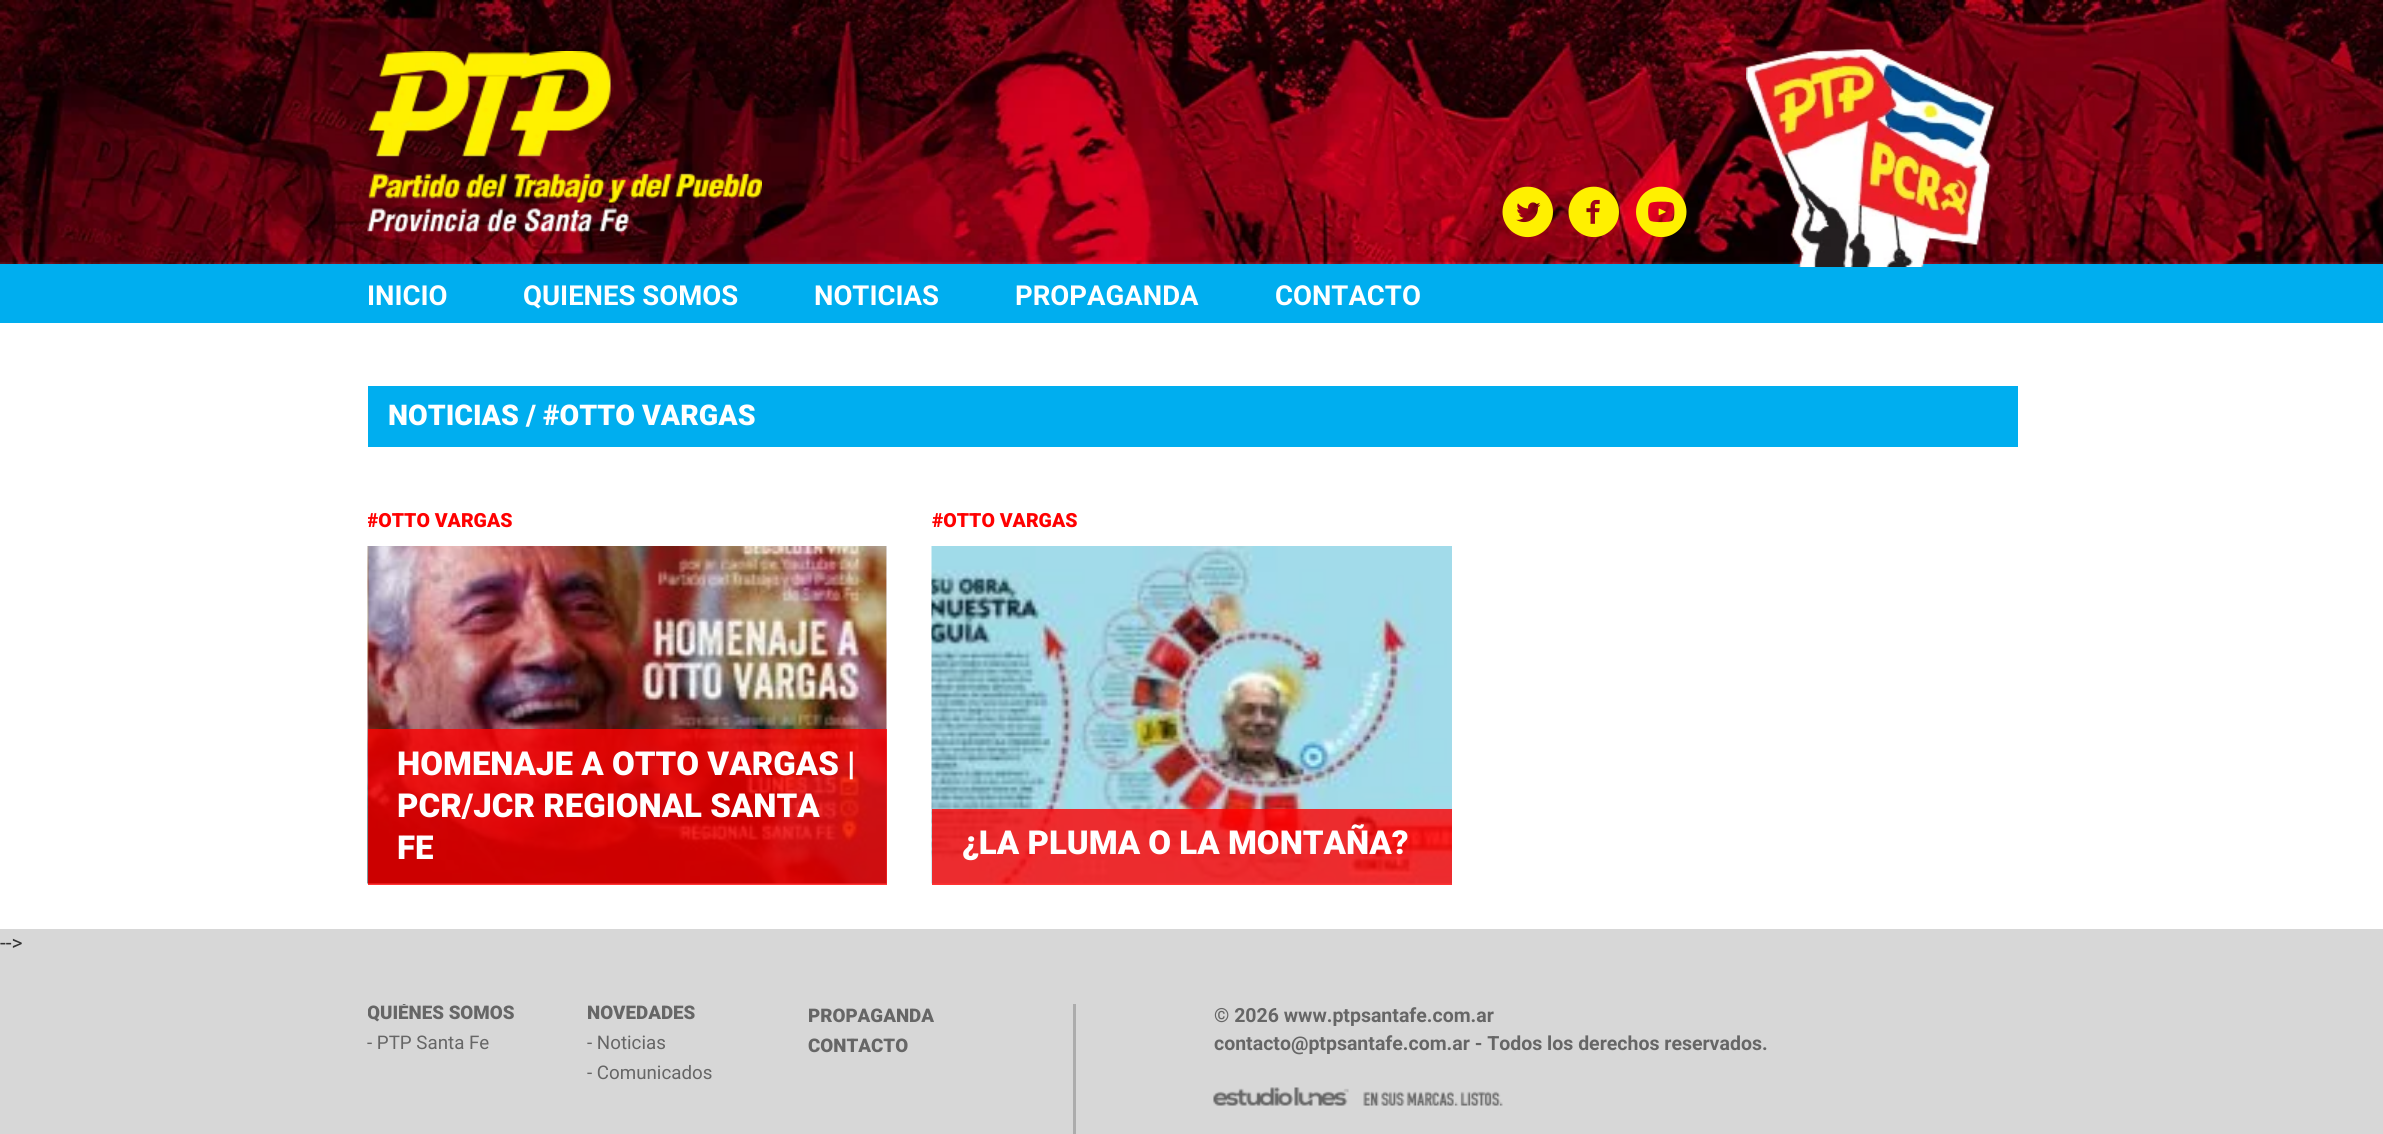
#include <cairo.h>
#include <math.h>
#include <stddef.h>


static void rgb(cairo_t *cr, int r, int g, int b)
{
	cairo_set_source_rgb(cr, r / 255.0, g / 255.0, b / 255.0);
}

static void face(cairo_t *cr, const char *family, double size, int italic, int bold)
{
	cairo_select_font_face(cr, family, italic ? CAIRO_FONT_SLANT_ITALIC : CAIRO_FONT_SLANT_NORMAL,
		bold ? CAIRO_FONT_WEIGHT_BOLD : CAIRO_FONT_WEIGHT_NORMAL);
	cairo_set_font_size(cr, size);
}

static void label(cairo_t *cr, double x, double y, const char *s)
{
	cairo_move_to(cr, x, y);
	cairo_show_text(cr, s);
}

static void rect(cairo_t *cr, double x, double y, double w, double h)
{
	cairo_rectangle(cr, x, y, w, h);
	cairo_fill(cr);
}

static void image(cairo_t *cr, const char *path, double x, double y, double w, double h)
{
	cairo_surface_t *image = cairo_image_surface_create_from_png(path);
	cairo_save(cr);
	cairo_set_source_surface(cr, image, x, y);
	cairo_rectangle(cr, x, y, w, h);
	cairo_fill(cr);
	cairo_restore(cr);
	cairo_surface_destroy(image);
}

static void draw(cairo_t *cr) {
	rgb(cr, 215, 215, 215);
	cairo_paint(cr);
	image(cr, "image0.png", 0, 0, 2383, 264);
	image(cr, "image1.png", 367, 51, 395, 182);
	image(cr, "image2.png", 1502, 186, 51, 52);
	image(cr, "image3.png", 1568, 186, 51, 52);
	image(cr, "image4.png", 1636, 186, 51, 52);
	rgb(cr, 0, 174, 239);
	rect(cr, 0, 264, 2383, 59);
	image(cr, "image5.png", 1746, 48, 249, 219);
	face(cr, "Roboto", 27.5, 0, 1);
	rgb(cr, 255, 255, 255);
	label(cr, 367, 305, "INICIO");
	label(cr, 523, 305, "QUIENES SOMOS");
	label(cr, 814, 305, "NOTICIAS");
	label(cr, 1015, 305, "PROPAGANDA");
	label(cr, 1275, 305, "CONTACTO");
	rect(cr, 0, 323, 2383, 606);
	rgb(cr, 0, 174, 239);
	rect(cr, 368, 386, 1650, 61);
	face(cr, "Roboto Black", 28.5, 0, 0);
	rgb(cr, 255, 255, 255);
	label(cr, 388, 425, "NOTICIAS / #OTTO VARGAS");
	cairo_save(cr);
	cairo_rectangle(cr, 368, 495, 519, 41);
	cairo_clip(cr);
	face(cr, "Roboto Black", 19.5, 0, 0);
	rgb(cr, 255, 0, 0);
	label(cr, 367, 527, "#OTTO VARGAS");
	cairo_restore(cr);
	image(cr, "image6.png", 367, 546, 520, 338);
	cairo_set_source_rgba(cr, 1, 0, 0, 0.8);
	rect(cr, 368, 729, 519, 156);
	face(cr, "Roboto Black", 33, 0, 0);
	rgb(cr, 255, 255, 255);
	label(cr, 397, 775, "HOMENAJE A OTTO VARGAS |");
	label(cr, 397, 817, "PCR/JCR REGIONAL SANTA");
	label(cr, 397, 859, "FE");
	face(cr, "Roboto Black", 19.5, 0, 0);
	rgb(cr, 255, 0, 0);
	label(cr, 932, 527, "#OTTO VARGAS");
	image(cr, "image7.png", 931, 546, 521, 338);
	cairo_set_source_rgba(cr, 1, 0, 0, 0.8);
	rect(cr, 932, 809, 520, 76);
	face(cr, "Roboto Black", 33, 0, 0);
	rgb(cr, 255, 255, 255);
	label(cr, 962, 854, "¿LA PLUMA O LA MONTAÑA?");
	face(cr, "Roboto", 21, 0, 0);
	rgb(cr, 51, 51, 51);
	label(cr, 0, 950, "-->");
	cairo_save(cr);
	cairo_rectangle(cr, 368, 1004, 660, 109);
	cairo_clip(cr);
	face(cr, "Roboto Black", 18.75, 0, 0);
	rgb(cr, 102, 102, 102);
	label(cr, 367, 1019, "QUIÉNES SOMOS");
	cairo_restore(cr);
	face(cr, "Roboto", 18.75, 0, 0);
	rgb(cr, 102, 102, 102);
	label(cr, 367, 1049, "- PTP Santa Fe");
	face(cr, "Roboto Black", 18.75, 0, 0);
	label(cr, 587, 1019, "NOVEDADES");
	face(cr, "Roboto", 18.75, 0, 0);
	label(cr, 587, 1049, "- Noticias");
	label(cr, 587, 1079, "- Comunicados");
	face(cr, "Roboto Black", 18.75, 0, 0);
	label(cr, 808, 1022, "PROPAGANDA");
	label(cr, 808, 1052, "CONTACTO");
	rgb(cr, 172, 172, 172);
	rect(cr, 1073, 1004, 3, 130);
	face(cr, "Roboto", 19.5, 0, 1);
	rgb(cr, 102, 102, 102);
	label(cr, 1214, 1022, "© 2026 www.ptpsantafe.com.ar");
	label(cr, 1214, 1050, "contacto@ptpsantafe.com.ar - Todos los derechos reservados.");
	image(cr, "image8.png", 1213, 1087, 290, 19);
}

int main(void) {
	cairo_surface_t *surface = cairo_image_surface_create(CAIRO_FORMAT_RGB24, 2383, 1134);
	cairo_t *cr = cairo_create(surface);
	cairo_font_options_t *options = cairo_font_options_create();
	cairo_font_options_set_hint_metrics(options, CAIRO_HINT_METRICS_OFF);
	cairo_font_options_set_hint_style(options, CAIRO_HINT_STYLE_NONE);
	cairo_set_font_options(cr, options);
	cairo_set_miter_limit(cr, 4);
	draw(cr);
	cairo_surface_write_to_png(surface, "render.png");
	cairo_font_options_destroy(options);
	cairo_destroy(cr);
	cairo_surface_destroy(surface);
	return 0;
}
